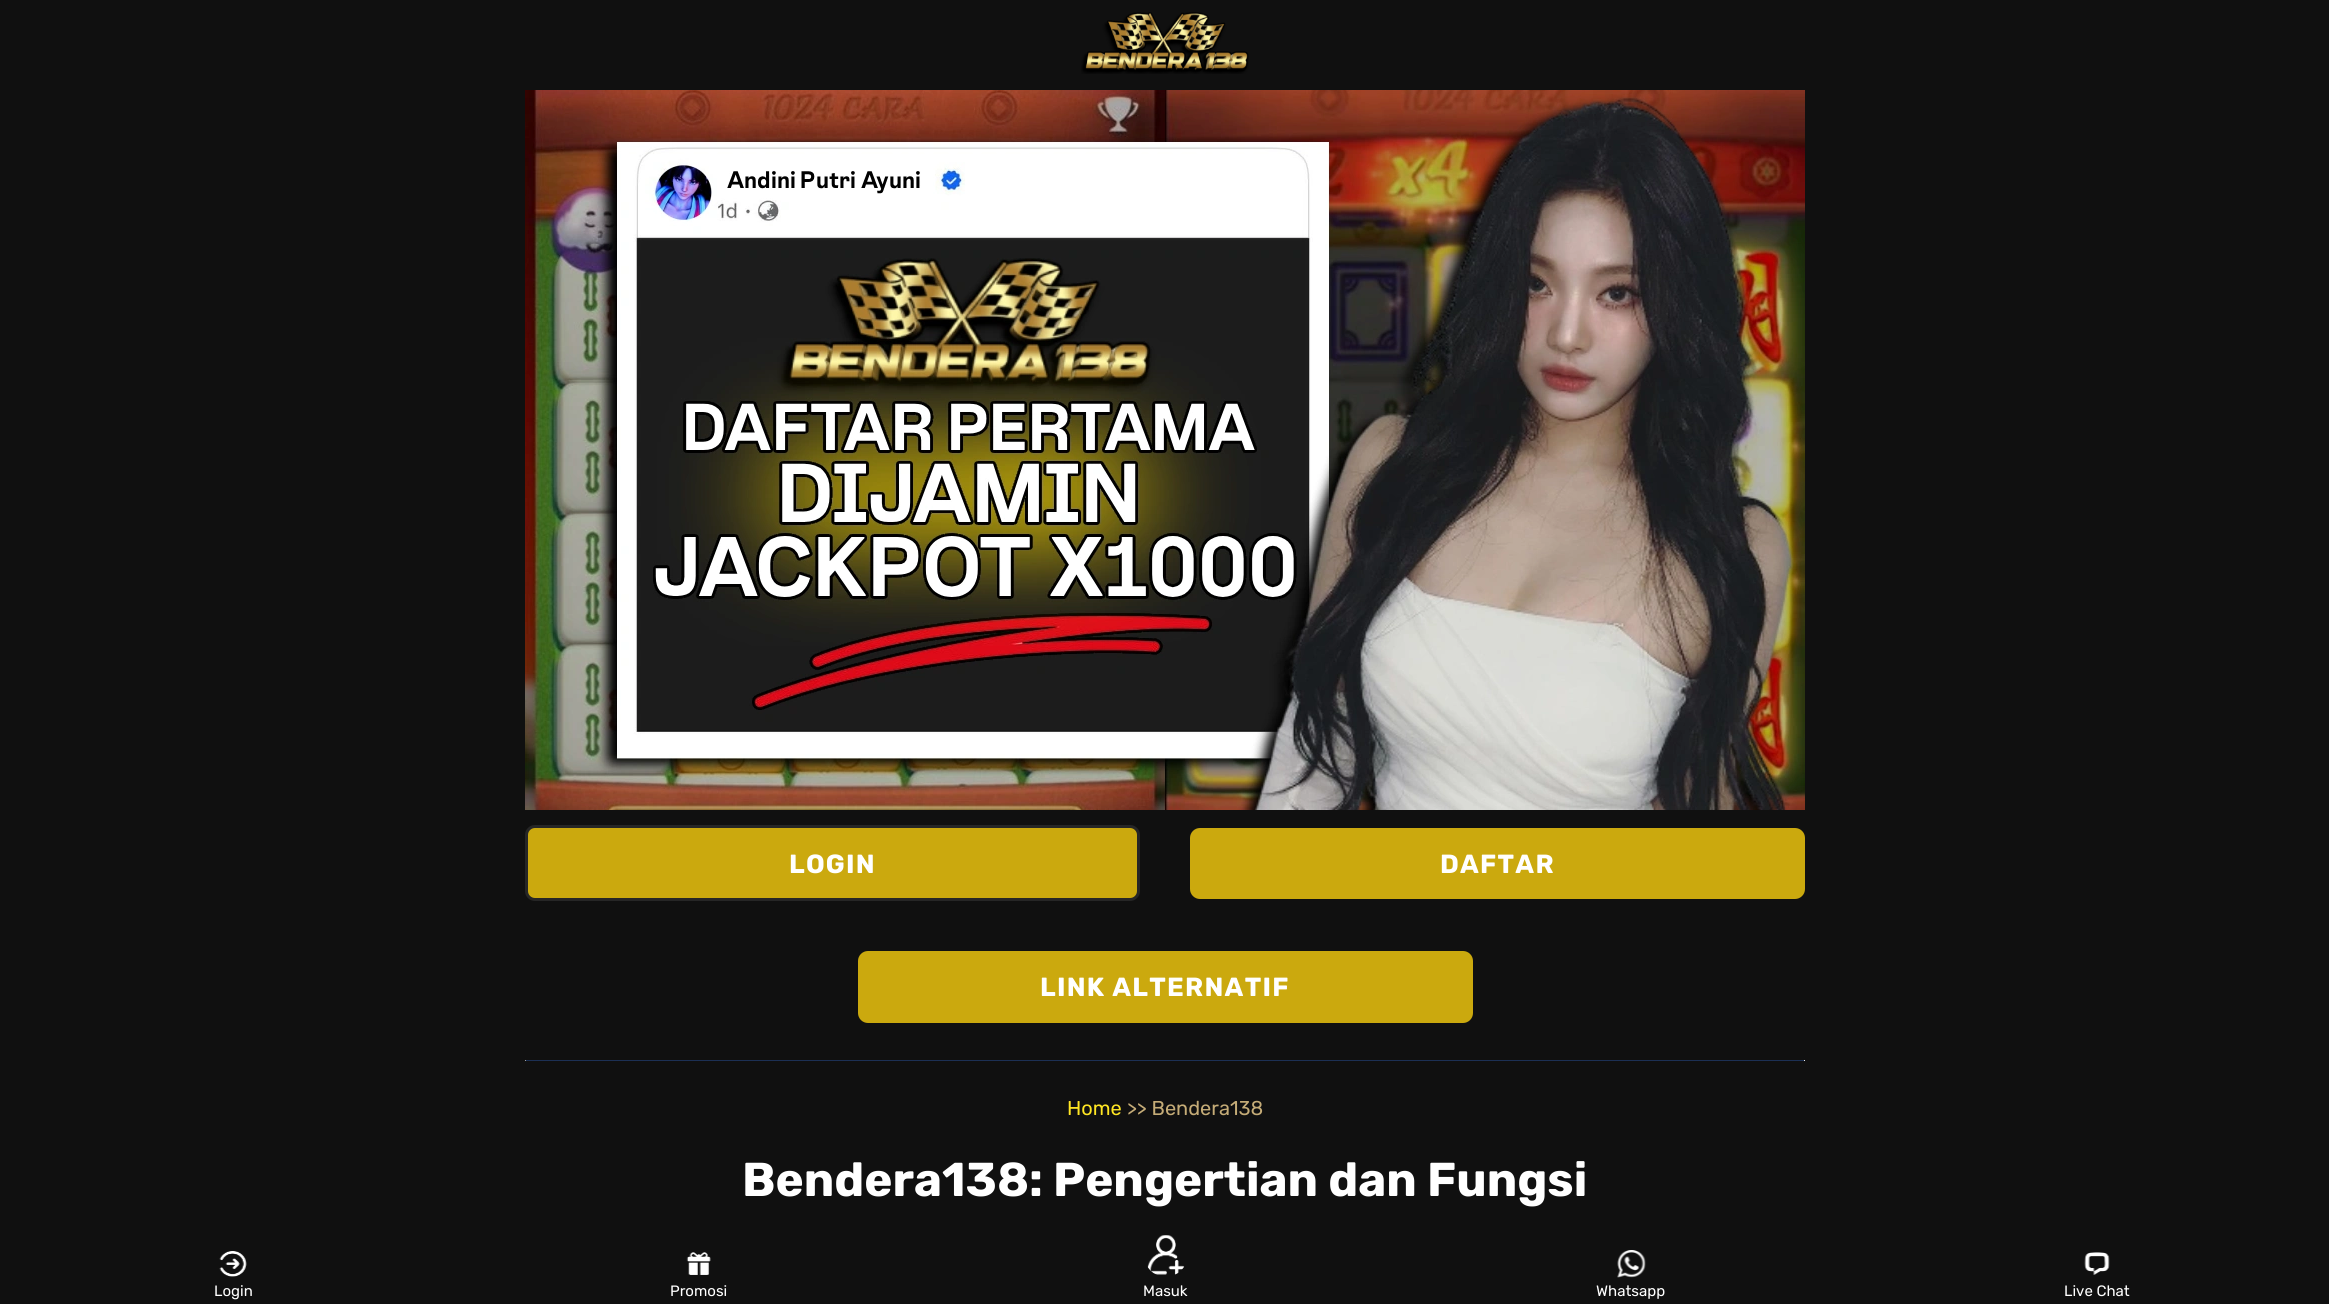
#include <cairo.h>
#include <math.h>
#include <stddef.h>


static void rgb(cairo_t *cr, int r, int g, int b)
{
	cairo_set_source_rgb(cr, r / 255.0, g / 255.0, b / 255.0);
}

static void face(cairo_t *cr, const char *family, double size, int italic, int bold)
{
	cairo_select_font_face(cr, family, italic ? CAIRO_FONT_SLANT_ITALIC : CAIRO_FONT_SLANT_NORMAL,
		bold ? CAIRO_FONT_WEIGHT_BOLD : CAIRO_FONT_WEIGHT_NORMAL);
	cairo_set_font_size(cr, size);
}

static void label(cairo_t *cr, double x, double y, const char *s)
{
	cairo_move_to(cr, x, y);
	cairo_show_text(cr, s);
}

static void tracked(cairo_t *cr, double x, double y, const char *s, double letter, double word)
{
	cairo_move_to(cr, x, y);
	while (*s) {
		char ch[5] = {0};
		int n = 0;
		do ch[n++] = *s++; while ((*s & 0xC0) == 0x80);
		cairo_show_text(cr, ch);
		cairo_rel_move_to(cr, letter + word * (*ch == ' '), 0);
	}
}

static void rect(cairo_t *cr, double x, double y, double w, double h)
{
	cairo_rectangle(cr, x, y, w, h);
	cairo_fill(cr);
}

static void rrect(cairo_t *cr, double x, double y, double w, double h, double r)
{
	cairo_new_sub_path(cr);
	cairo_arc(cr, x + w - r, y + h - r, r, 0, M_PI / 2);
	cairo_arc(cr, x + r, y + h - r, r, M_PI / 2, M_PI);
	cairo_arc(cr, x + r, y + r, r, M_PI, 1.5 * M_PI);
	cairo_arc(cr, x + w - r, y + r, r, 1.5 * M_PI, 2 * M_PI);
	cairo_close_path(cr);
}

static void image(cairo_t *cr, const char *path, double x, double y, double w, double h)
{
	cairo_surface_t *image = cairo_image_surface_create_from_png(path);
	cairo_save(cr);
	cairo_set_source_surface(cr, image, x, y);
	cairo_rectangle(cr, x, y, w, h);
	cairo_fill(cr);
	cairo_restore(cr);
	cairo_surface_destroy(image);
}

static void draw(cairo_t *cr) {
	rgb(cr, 16, 16, 16);
	cairo_paint(cr);
	image(cr, "image0.png", 1081, 12, 168, 62);
	image(cr, "image1.png", 525, 90, 1280, 720);
	rgb(cr, 203, 169, 14);
	rrect(cr, 526.5, 826.5, 612, 73, 8.5);
	cairo_fill_preserve(cr);
	rgb(cr, 38, 38, 38);
	cairo_set_line_width(cr, 3);
	cairo_stroke(cr);
	face(cr, "Rubik", 26.25, 0, 1);
	rgb(cr, 255, 255, 255);
	tracked(cr, 789, 873, "LOGIN", 1.25, 0);
	rgb(cr, 203, 169, 14);
	rrect(cr, 1190, 828, 615, 71, 10);
	cairo_fill(cr);
	rgb(cr, 255, 255, 255);
	tracked(cr, 1440, 873, "DAFTAR", 1.25, 0);
	rgb(cr, 203, 169, 14);
	rrect(cr, 858, 951, 615, 72, 10);
	cairo_fill(cr);
	rgb(cr, 255, 255, 255);
	tracked(cr, 1040, 996, "LINK ALTERNATIF", 1.25, 0);
	rgb(cr, 28, 48, 85);
	rect(cr, 525, 1060, 1280, 1);
	rgb(cr, 238, 238, 238);
	rect(cr, 1804, 1060, 1, 1);
	rgb(cr, 159, 159, 159);
	rect(cr, 525, 1060, 1, 1);
	face(cr, "Rubik", 20, 0, 0);
	rgb(cr, 255, 230, 35);
	label(cr, 1067, 1115, "Home");
	rgb(cr, 197, 172, 119);
	label(cr, 1127, 1115, ">> Bendera138");
	face(cr, "Rubik", 47.5, 0, 1);
	rgb(cr, 255, 255, 255);
	label(cr, 742, 1196, "Bendera138: Pengertian dan Fungsi");
	image(cr, "image2.png", 219, 1251, 28, 26);
	face(cr, "Rubik", 15, 0, 0);
	label(cr, 214, 1296, "Login");
	image(cr, "image3.png", 686, 1252, 25, 23);
	label(cr, 670, 1296, "Promosi");
	image(cr, "image4.png", 1147, 1235, 38, 40);
	label(cr, 1143, 1296, "Masuk");
	image(cr, "image5.png", 1617, 1250, 29, 28);
	label(cr, 1596, 1296, "Whatsapp");
	image(cr, "image6.png", 2084, 1252, 26, 23);
	label(cr, 2064, 1296, "Live Chat");
}

int main(void) {
	cairo_surface_t *surface = cairo_image_surface_create(CAIRO_FORMAT_RGB24, 2329, 1304);
	cairo_t *cr = cairo_create(surface);
	cairo_font_options_t *options = cairo_font_options_create();
	cairo_font_options_set_hint_metrics(options, CAIRO_HINT_METRICS_OFF);
	cairo_font_options_set_hint_style(options, CAIRO_HINT_STYLE_NONE);
	cairo_set_font_options(cr, options);
	cairo_set_miter_limit(cr, 4);
	draw(cr);
	cairo_surface_write_to_png(surface, "render.png");
	cairo_font_options_destroy(options);
	cairo_destroy(cr);
	cairo_surface_destroy(surface);
	return 0;
}
